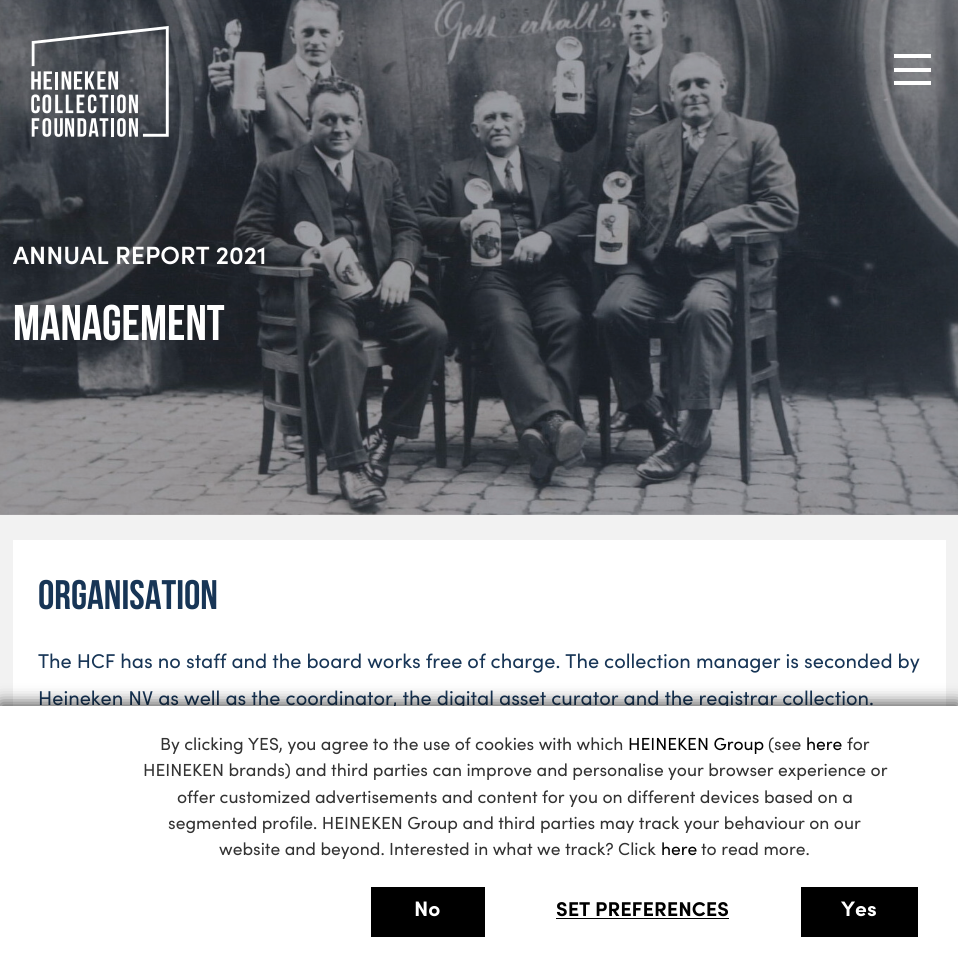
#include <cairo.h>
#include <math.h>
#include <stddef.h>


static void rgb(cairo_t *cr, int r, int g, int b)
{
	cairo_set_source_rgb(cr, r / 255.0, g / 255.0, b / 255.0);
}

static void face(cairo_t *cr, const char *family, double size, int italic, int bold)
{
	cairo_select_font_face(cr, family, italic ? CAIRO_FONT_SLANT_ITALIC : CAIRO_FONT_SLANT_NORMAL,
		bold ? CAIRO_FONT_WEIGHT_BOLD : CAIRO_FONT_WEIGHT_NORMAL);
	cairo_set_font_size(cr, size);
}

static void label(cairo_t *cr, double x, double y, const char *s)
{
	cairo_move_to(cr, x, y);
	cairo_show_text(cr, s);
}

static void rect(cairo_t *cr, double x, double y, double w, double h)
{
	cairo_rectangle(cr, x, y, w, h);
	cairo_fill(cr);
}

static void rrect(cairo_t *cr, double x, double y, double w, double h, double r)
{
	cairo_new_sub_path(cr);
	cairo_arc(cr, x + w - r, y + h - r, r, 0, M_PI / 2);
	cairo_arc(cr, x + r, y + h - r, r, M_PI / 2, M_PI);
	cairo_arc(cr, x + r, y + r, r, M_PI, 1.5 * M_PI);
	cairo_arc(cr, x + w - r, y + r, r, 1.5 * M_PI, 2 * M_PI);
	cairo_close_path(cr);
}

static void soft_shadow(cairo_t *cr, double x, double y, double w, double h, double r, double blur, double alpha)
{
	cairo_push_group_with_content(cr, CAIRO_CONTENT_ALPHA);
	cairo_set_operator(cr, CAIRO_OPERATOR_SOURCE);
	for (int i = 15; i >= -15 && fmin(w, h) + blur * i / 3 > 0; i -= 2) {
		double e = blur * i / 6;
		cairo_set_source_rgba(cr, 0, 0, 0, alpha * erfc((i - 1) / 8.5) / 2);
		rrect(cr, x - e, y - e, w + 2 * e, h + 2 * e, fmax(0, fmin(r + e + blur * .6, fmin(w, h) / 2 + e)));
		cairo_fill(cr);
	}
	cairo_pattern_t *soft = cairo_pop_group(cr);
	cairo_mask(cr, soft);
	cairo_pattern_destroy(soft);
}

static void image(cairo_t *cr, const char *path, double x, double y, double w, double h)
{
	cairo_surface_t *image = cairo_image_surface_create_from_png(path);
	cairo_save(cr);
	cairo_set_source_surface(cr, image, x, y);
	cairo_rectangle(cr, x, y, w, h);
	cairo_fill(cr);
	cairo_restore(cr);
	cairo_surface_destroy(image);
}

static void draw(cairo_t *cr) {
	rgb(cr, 242, 242, 242);
	cairo_paint(cr);
	image(cr, "image1.png", 0, 0, 958, 515);
	image(cr, "image0.png", 31, 25, 138, 112);
	rgb(cr, 255, 255, 255);
	rect(cr, 894, 54, 37, 4);
	rect(cr, 894, 68, 37, 4);
	rect(cr, 894, 81, 37, 4);
	face(cr, "Sofia SemiBold", 25, 0, 0);
	label(cr, 13, 264, "ANNUAL REPORT 2021");
	face(cr, "Bebas Neue", 50, 0, 1);
	label(cr, 13, 340, "Management");
	rect(cr, 13, 540, 933, 166);
	face(cr, "Bebas Neue", 41.25, 0, 1);
	rgb(cr, 23, 53, 86);
	label(cr, 38, 609, "Organisation");
	face(cr, "Sofia", 20, 0, 0);
	label(cr, 38, 668, "The HCF has no staff and the board works free of charge. The collection manager is seconded by");
	label(cr, 38, 705, "Heineken NV as well as the coordinator, the digital asset curator and the registrar collection.");
	rgb(cr, 0, 0, 0);
	soft_shadow(cr, 0, 703, 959, 258, 0, 8, 0.66);
	rgb(cr, 255, 255, 255);
	rect(cr, 0, 706, 958, 258);
	face(cr, "Sofia", 17.5, 0, 0);
	rgb(cr, 51, 51, 51);
	label(cr, 160, 750, "By clicking YES, you agree to the use of cookies with which");
	rgb(cr, 0, 0, 0);
	label(cr, 628, 750, "HEINEKEN Group");
	rgb(cr, 51, 51, 51);
	label(cr, 768, 750, "(see");
	rgb(cr, 0, 0, 0);
	label(cr, 806, 750, "here");
	rgb(cr, 51, 51, 51);
	label(cr, 847, 750, "for");
	label(cr, 143, 776, "HEINEKEN brands) and third parties can improve and personalise your browser experience or");
	label(cr, 177, 803, "offer customized advertisements and content for you on different devices based on a");
	label(cr, 168, 829, "segmented profile. HEINEKEN Group and third parties may track your behaviour on our");
	label(cr, 219, 855, "website and beyond. Interested in what we track? Click");
	rgb(cr, 0, 0, 0);
	label(cr, 661, 855, "here");
	rgb(cr, 51, 51, 51);
	label(cr, 701, 855, "to read more.");
	rgb(cr, 0, 0, 0);
	rect(cr, 371, 887, 114, 50);
	face(cr, "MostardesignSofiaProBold", 21, 0, 1);
	rgb(cr, 255, 255, 255);
	label(cr, 414, 916, "No");
	face(cr, "MostardesignSofiaProBold", 20, 0, 1);
	rgb(cr, 0, 0, 0);
	label(cr, 556, 916, "SET PREFERENCES");
	rect(cr, 556, 918, 173, 1);
	rect(cr, 801, 887, 117, 50);
	face(cr, "MostardesignSofiaProBold", 21, 0, 1);
	rgb(cr, 255, 255, 255);
	label(cr, 841, 916, "Yes");
}

int main(void) {
	cairo_surface_t *surface = cairo_image_surface_create(CAIRO_FORMAT_RGB24, 958, 964);
	cairo_t *cr = cairo_create(surface);
	cairo_font_options_t *options = cairo_font_options_create();
	cairo_font_options_set_hint_metrics(options, CAIRO_HINT_METRICS_OFF);
	cairo_font_options_set_hint_style(options, CAIRO_HINT_STYLE_NONE);
	cairo_set_font_options(cr, options);
	cairo_set_miter_limit(cr, 4);
	draw(cr);
	cairo_surface_write_to_png(surface, "render.png");
	cairo_font_options_destroy(options);
	cairo_destroy(cr);
	cairo_surface_destroy(surface);
	return 0;
}
